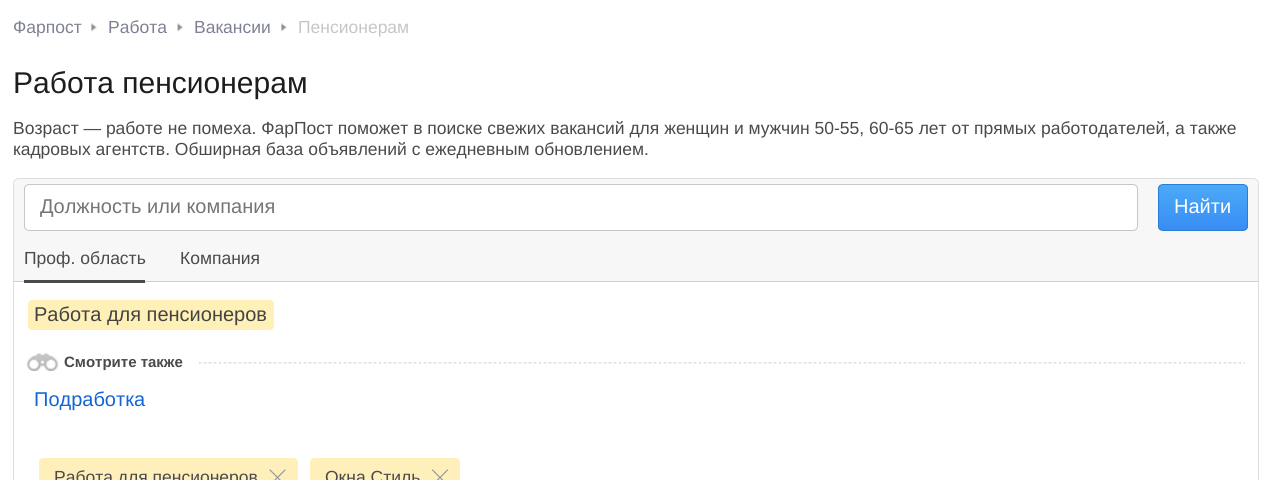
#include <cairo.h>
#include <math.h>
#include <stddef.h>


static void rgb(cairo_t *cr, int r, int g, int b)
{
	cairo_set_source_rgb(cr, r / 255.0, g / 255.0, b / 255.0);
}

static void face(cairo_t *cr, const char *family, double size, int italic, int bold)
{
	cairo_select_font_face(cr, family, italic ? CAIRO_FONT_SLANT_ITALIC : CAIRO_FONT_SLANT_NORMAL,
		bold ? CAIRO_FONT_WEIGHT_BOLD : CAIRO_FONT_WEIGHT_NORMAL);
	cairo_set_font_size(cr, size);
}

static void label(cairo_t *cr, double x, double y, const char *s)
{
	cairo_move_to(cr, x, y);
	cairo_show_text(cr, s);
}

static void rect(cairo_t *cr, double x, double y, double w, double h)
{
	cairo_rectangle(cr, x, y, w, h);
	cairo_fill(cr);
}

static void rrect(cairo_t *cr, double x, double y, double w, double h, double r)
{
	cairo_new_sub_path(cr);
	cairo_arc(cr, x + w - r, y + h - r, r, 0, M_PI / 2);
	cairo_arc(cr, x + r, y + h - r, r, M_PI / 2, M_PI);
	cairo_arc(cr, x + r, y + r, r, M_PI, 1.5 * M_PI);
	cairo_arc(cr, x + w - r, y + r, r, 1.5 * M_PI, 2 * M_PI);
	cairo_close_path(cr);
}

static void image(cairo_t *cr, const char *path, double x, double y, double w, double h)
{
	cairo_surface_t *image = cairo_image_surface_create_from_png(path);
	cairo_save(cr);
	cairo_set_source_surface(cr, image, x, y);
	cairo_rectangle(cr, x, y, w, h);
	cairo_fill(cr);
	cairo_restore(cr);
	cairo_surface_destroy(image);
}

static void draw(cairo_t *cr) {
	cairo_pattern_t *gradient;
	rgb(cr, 255, 255, 255);
	cairo_paint(cr);
	face(cr, "Liberation Sans", 17.5, 0, 0);
	rgb(cr, 126, 129, 147);
	label(cr, 13, 33, "Фарпост");
	image(cr, "image0.png", 91, 23, 6, 9);
	label(cr, 108, 33, "Работа");
	image(cr, "image1.png", 177, 23, 6, 9);
	label(cr, 194, 33, "Вакансии");
	image(cr, "image0.png", 281, 23, 6, 9);
	rgb(cr, 198, 198, 198);
	label(cr, 298, 33, "Пенсионерам");
	face(cr, "Liberation Sans", 30, 0, 0);
	rgb(cr, 29, 29, 32);
	label(cr, 13, 93, "Работа пенсионерам");
	face(cr, "Liberation Sans", 17.5, 0, 0);
	rgb(cr, 74, 74, 74);
	label(cr, 13, 134, "Возраст — работе не помеха. ФарПост поможет в поиске свежих вакансий для женщин и мужчин 50-55, 60-65 лет от прямых работодателей, а также");
	label(cr, 13, 155, "кадровых агентств. Обширная база объявлений с ежедневным обновлением.");
	rgb(cr, 247, 247, 247);
	rrect(cr, 13.5, 178.5, 1245, 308, 5.5);
	cairo_fill_preserve(cr);
	rgb(cr, 221, 221, 221);
	cairo_set_line_width(cr, 1);
	cairo_stroke(cr);
	rgb(cr, 247, 247, 247);
	rrect(cr, 14, 179, 1244, 57, 6);
	cairo_fill(cr);
	rgb(cr, 255, 255, 255);
	rrect(cr, 24.5, 184.5, 1113, 46, 4.5);
	cairo_fill_preserve(cr);
	rgb(cr, 198, 198, 198);
	cairo_stroke(cr);
	face(cr, "Liberation Sans", 20, 0, 0);
	rgb(cr, 117, 117, 117);
	label(cr, 40, 213, "Должность или компания");
	cairo_save(cr);
	rrect(cr, 1158, 184, 90, 47, 5);
	cairo_clip(cr);
	gradient = cairo_pattern_create_linear(1203, 185, 1203, 230);
	cairo_pattern_add_color_stop_rgba(gradient, 0, 0.294, 0.663, 0.969, 1);
	cairo_pattern_add_color_stop_rgba(gradient, 1, 0.22, 0.553, 0.961, 1);
	cairo_set_source(cr, gradient);
	cairo_pattern_destroy(gradient);
	rect(cr, 1158, 185, 90, 45);
	cairo_restore(cr);
	rrect(cr, 1158.5, 184.5, 89, 46, 4.5);
	rgb(cr, 44, 125, 210);
	cairo_stroke(cr);
	rgb(cr, 255, 255, 255);
	label(cr, 1174, 213, "Найти");
	rect(cr, 14, 282, 1244, 198);
	rgb(cr, 207, 207, 207);
	rect(cr, 14, 281, 1244, 1);
	rgb(cr, 74, 74, 74);
	rect(cr, 24, 280, 121, 3);
	face(cr, "Liberation Sans", 17.5, 0, 0);
	label(cr, 24, 264, "Проф. область");
	label(cr, 180, 264, "Компания");
	rgb(cr, 255, 240, 183);
	rrect(cr, 28, 300, 246, 30, 4);
	cairo_fill(cr);
	face(cr, "Liberation Sans", 20, 0, 0);
	rgb(cr, 67, 67, 67);
	label(cr, 34, 321, "Работа для пенсионеров");
	image(cr, "image2.png", 26, 353, 33, 18);
	face(cr, "Liberation Sans", 15, 0, 1);
	rgb(cr, 74, 74, 74);
	label(cr, 64, 367, "Смотрите также");
	image(cr, "image3.png", 199, 362, 1046, 2);
	face(cr, "Liberation Sans", 20, 0, 0);
	rgb(cr, 21, 100, 212);
	label(cr, 34, 406, "Подработка");
	rgb(cr, 255, 239, 186);
	rrect(cr, 39, 458, 259, 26, 4);
	cairo_fill(cr);
	face(cr, "Liberation Sans", 17.5, 0, 0);
	rgb(cr, 74, 74, 74);
	label(cr, 54, 483, "Работа для пенсионеров");
	cairo_new_path(cr);
	cairo_move_to(cr, 270, 470);
	cairo_line_to(cr, 285, 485);
	cairo_move_to(cr, 285, 470);
	cairo_line_to(cr, 270, 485);
	rgb(cr, 153, 153, 153);
	cairo_set_line_width(cr, 1.2);
	cairo_set_line_cap(cr, CAIRO_LINE_CAP_ROUND);
	cairo_stroke(cr);
	rgb(cr, 255, 239, 186);
	rrect(cr, 310, 458, 150, 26, 4);
	cairo_fill(cr);
	rgb(cr, 74, 74, 74);
	label(cr, 325, 483, "Окна Стиль");
	cairo_new_path(cr);
	cairo_move_to(cr, 432.5, 470);
	cairo_line_to(cr, 447.5, 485);
	cairo_move_to(cr, 447.5, 470);
	cairo_line_to(cr, 432.5, 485);
	rgb(cr, 153, 153, 153);
	cairo_stroke(cr);
}

int main(void) {
	cairo_surface_t *surface = cairo_image_surface_create(CAIRO_FORMAT_RGB24, 1271, 480);
	cairo_t *cr = cairo_create(surface);
	cairo_font_options_t *options = cairo_font_options_create();
	cairo_font_options_set_hint_metrics(options, CAIRO_HINT_METRICS_OFF);
	cairo_font_options_set_hint_style(options, CAIRO_HINT_STYLE_NONE);
	cairo_set_font_options(cr, options);
	cairo_set_miter_limit(cr, 4);
	draw(cr);
	cairo_surface_write_to_png(surface, "render.png");
	cairo_font_options_destroy(options);
	cairo_destroy(cr);
	cairo_surface_destroy(surface);
	return 0;
}
